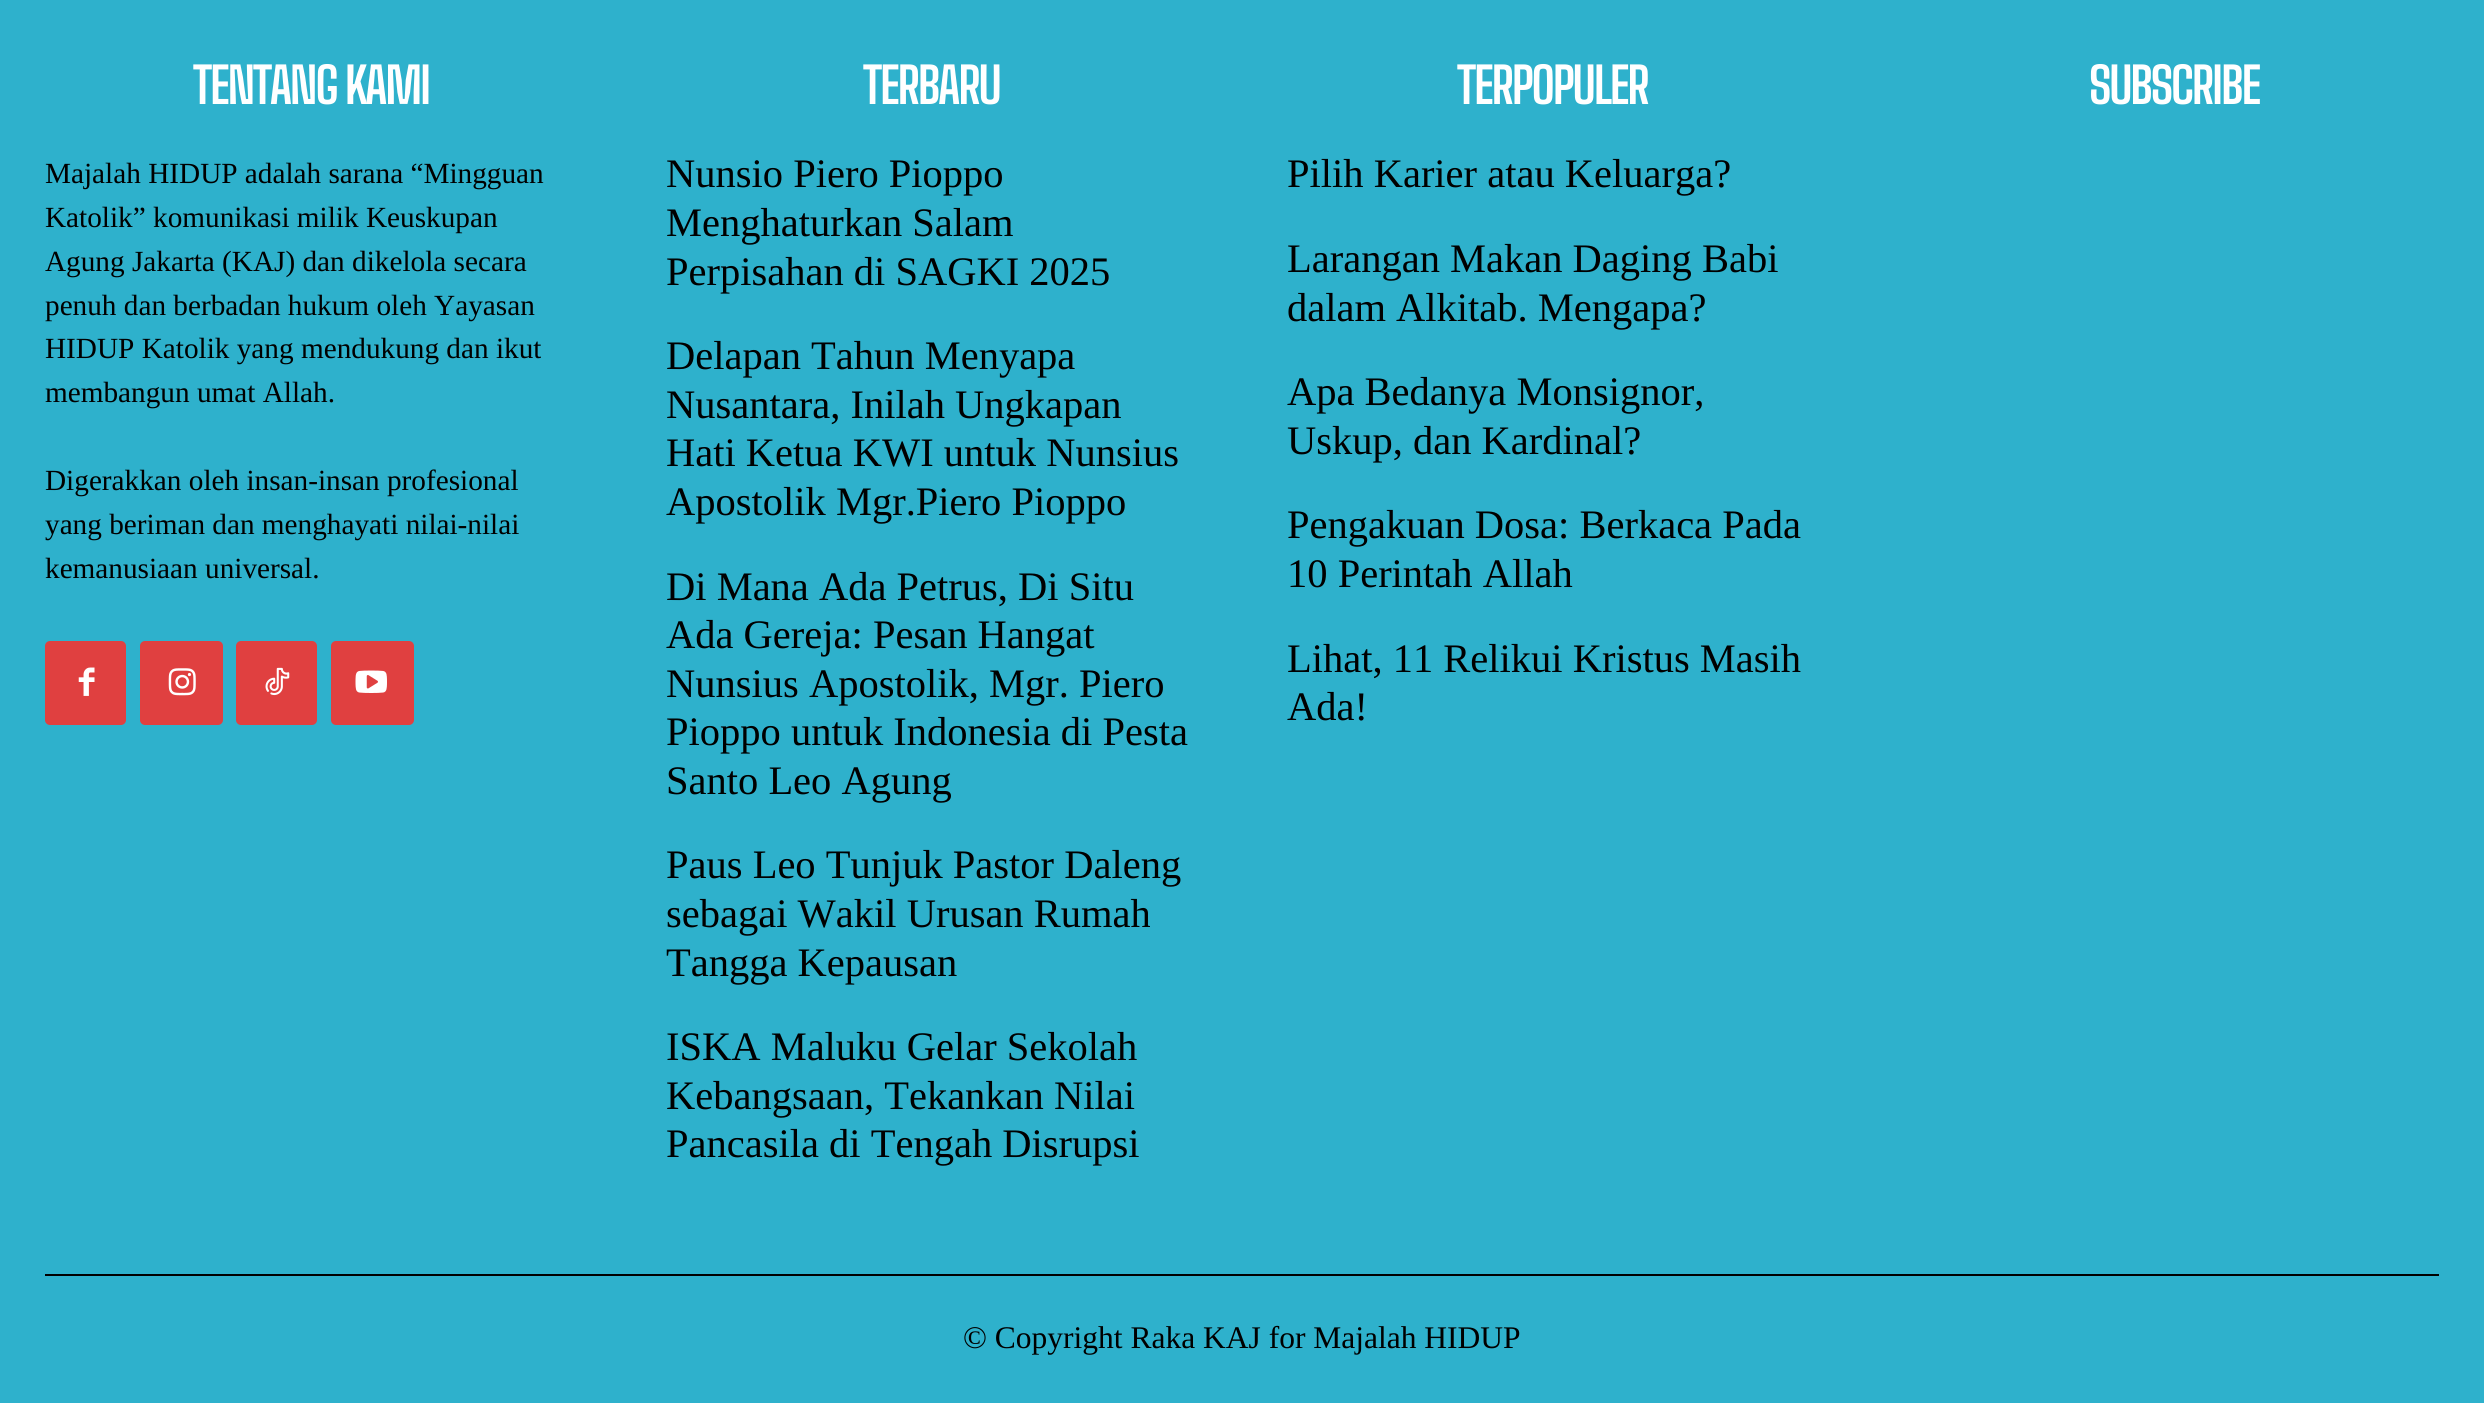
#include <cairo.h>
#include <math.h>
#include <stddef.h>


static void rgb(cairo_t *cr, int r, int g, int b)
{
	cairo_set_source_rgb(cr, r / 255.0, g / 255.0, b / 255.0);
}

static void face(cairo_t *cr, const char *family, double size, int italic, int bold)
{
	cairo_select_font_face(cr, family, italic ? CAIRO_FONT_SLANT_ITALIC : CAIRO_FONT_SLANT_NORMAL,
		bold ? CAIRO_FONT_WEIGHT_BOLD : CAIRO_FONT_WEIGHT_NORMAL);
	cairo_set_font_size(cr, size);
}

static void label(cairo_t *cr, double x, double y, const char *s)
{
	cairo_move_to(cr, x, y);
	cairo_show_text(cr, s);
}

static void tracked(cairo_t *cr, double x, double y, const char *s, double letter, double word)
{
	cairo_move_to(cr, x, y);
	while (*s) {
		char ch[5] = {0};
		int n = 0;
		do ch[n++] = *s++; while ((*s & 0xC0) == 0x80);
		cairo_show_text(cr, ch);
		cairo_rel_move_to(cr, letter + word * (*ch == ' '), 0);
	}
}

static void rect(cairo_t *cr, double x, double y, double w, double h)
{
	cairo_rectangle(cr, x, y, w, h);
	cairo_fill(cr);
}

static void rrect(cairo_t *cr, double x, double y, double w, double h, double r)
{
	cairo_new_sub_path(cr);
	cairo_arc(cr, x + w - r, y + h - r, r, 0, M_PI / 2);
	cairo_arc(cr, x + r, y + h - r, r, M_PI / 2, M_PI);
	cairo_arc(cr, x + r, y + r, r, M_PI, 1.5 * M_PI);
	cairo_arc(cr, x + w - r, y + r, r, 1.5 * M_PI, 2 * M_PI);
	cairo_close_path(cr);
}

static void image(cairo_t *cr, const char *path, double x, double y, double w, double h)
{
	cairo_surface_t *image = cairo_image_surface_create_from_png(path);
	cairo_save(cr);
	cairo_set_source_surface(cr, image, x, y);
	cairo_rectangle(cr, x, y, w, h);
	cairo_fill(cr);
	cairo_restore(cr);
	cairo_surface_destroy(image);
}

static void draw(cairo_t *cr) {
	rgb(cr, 46, 177, 204);
	cairo_paint(cr);
	face(cr, "Big Shoulders Text", 49.5, 0, 1);
	rgb(cr, 255, 255, 255);
	tracked(cr, 193, 104, "TENTANG KAMI", -2.25, 0);
	face(cr, "Liberation Serif", 29.25, 0, 0);
	rgb(cr, 0, 0, 0);
	label(cr, 45, 183, "Majalah HIDUP adalah sarana “Mingguan");
	label(cr, 45, 227, "Katolik” komunikasi milik Keuskupan");
	label(cr, 45, 271, "Agung Jakarta (KAJ) dan dikelola secara");
	label(cr, 45, 315, "penuh dan berbadan hukum oleh Yayasan");
	label(cr, 45, 358, "HIDUP Katolik yang mendukung dan ikut");
	label(cr, 45, 402, "membangun umat Allah.");
	label(cr, 45, 490, "Digerakkan oleh insan-insan profesional");
	label(cr, 45, 534, "yang beriman dan menghayati nilai-nilai");
	label(cr, 45, 578, "kemanusiaan universal.");
	rgb(cr, 224, 64, 64);
	rrect(cr, 45, 641, 81, 84, 5);
	cairo_fill(cr);
	image(cr, "image0.png", 78, 667, 17, 29);
	rrect(cr, 140, 641, 83, 84, 5);
	cairo_fill(cr);
	image(cr, "image1.png", 168, 668, 28, 28);
	rrect(cr, 236, 641, 81, 84, 5);
	cairo_fill(cr);
	image(cr, "image2.png", 265, 667, 25, 29);
	rrect(cr, 331, 641, 83, 84, 5);
	cairo_fill(cr);
	image(cr, "image3.png", 355, 670, 32, 23);
	face(cr, "Big Shoulders Text", 49.5, 0, 1);
	rgb(cr, 255, 255, 255);
	tracked(cr, 863, 104, "TERBARU", -2.25, 0);
	face(cr, "Liberation Serif", 40.5, 0, 0);
	rgb(cr, 0, 0, 0);
	label(cr, 666, 187, "Nunsio Piero Pioppo");
	label(cr, 666, 236, "Menghaturkan Salam");
	label(cr, 666, 285, "Perpisahan di SAGKI 2025");
	label(cr, 666, 369, "Delapan Tahun Menyapa");
	label(cr, 666, 418, "Nusantara, Inilah Ungkapan");
	label(cr, 666, 466, "Hati Ketua KWI untuk Nunsius");
	label(cr, 666, 515, "Apostolik Mgr.Piero Pioppo");
	label(cr, 666, 600, "Di Mana Ada Petrus, Di Situ");
	label(cr, 666, 648, "Ada Gereja: Pesan Hangat");
	label(cr, 666, 697, "Nunsius Apostolik, Mgr. Piero");
	label(cr, 666, 745, "Pioppo untuk Indonesia di Pesta");
	label(cr, 666, 794, "Santo Leo Agung");
	label(cr, 666, 878, "Paus Leo Tunjuk Pastor Daleng");
	label(cr, 666, 927, "sebagai Wakil Urusan Rumah");
	label(cr, 666, 976, "Tangga Kepausan");
	label(cr, 666, 1060, "ISKA Maluku Gelar Sekolah");
	label(cr, 666, 1109, "Kebangsaan, Tekankan Nilai");
	label(cr, 666, 1157, "Pancasila di Tengah Disrupsi");
	face(cr, "Big Shoulders Text", 49.5, 0, 1);
	rgb(cr, 255, 255, 255);
	tracked(cr, 1457, 104, "TERPOPULER", -2.25, 0);
	face(cr, "Liberation Serif", 40.5, 0, 0);
	rgb(cr, 0, 0, 0);
	label(cr, 1287, 187, "Pilih Karier atau Keluarga?");
	label(cr, 1287, 272, "Larangan Makan Daging Babi");
	label(cr, 1287, 321, "dalam Alkitab. Mengapa?");
	label(cr, 1287, 405, "Apa Bedanya Monsignor,");
	label(cr, 1287, 454, "Uskup, dan Kardinal?");
	label(cr, 1287, 538, "Pengakuan Dosa: Berkaca Pada");
	label(cr, 1287, 587, "10 Perintah Allah");
	label(cr, 1287, 672, "Lihat, 11 Relikui Kristus Masih");
	label(cr, 1287, 720, "Ada!");
	face(cr, "Big Shoulders Text", 49.5, 0, 1);
	rgb(cr, 255, 255, 255);
	tracked(cr, 2089, 104, "SUBSCRIBE", -2.25, 0);
	rgb(cr, 0, 0, 0);
	rect(cr, 45, 1274, 2394, 2);
	face(cr, "Liberation Serif", 31.5, 0, 0);
	label(cr, 963, 1348, "© Copyright Raka KAJ for Majalah HIDUP");
}

int main(void) {
	cairo_surface_t *surface = cairo_image_surface_create(CAIRO_FORMAT_RGB24, 2484, 1403);
	cairo_t *cr = cairo_create(surface);
	cairo_font_options_t *options = cairo_font_options_create();
	cairo_font_options_set_hint_metrics(options, CAIRO_HINT_METRICS_OFF);
	cairo_font_options_set_hint_style(options, CAIRO_HINT_STYLE_NONE);
	cairo_set_font_options(cr, options);
	cairo_set_miter_limit(cr, 4);
	draw(cr);
	cairo_surface_write_to_png(surface, "render.png");
	cairo_font_options_destroy(options);
	cairo_destroy(cr);
	cairo_surface_destroy(surface);
	return 0;
}
